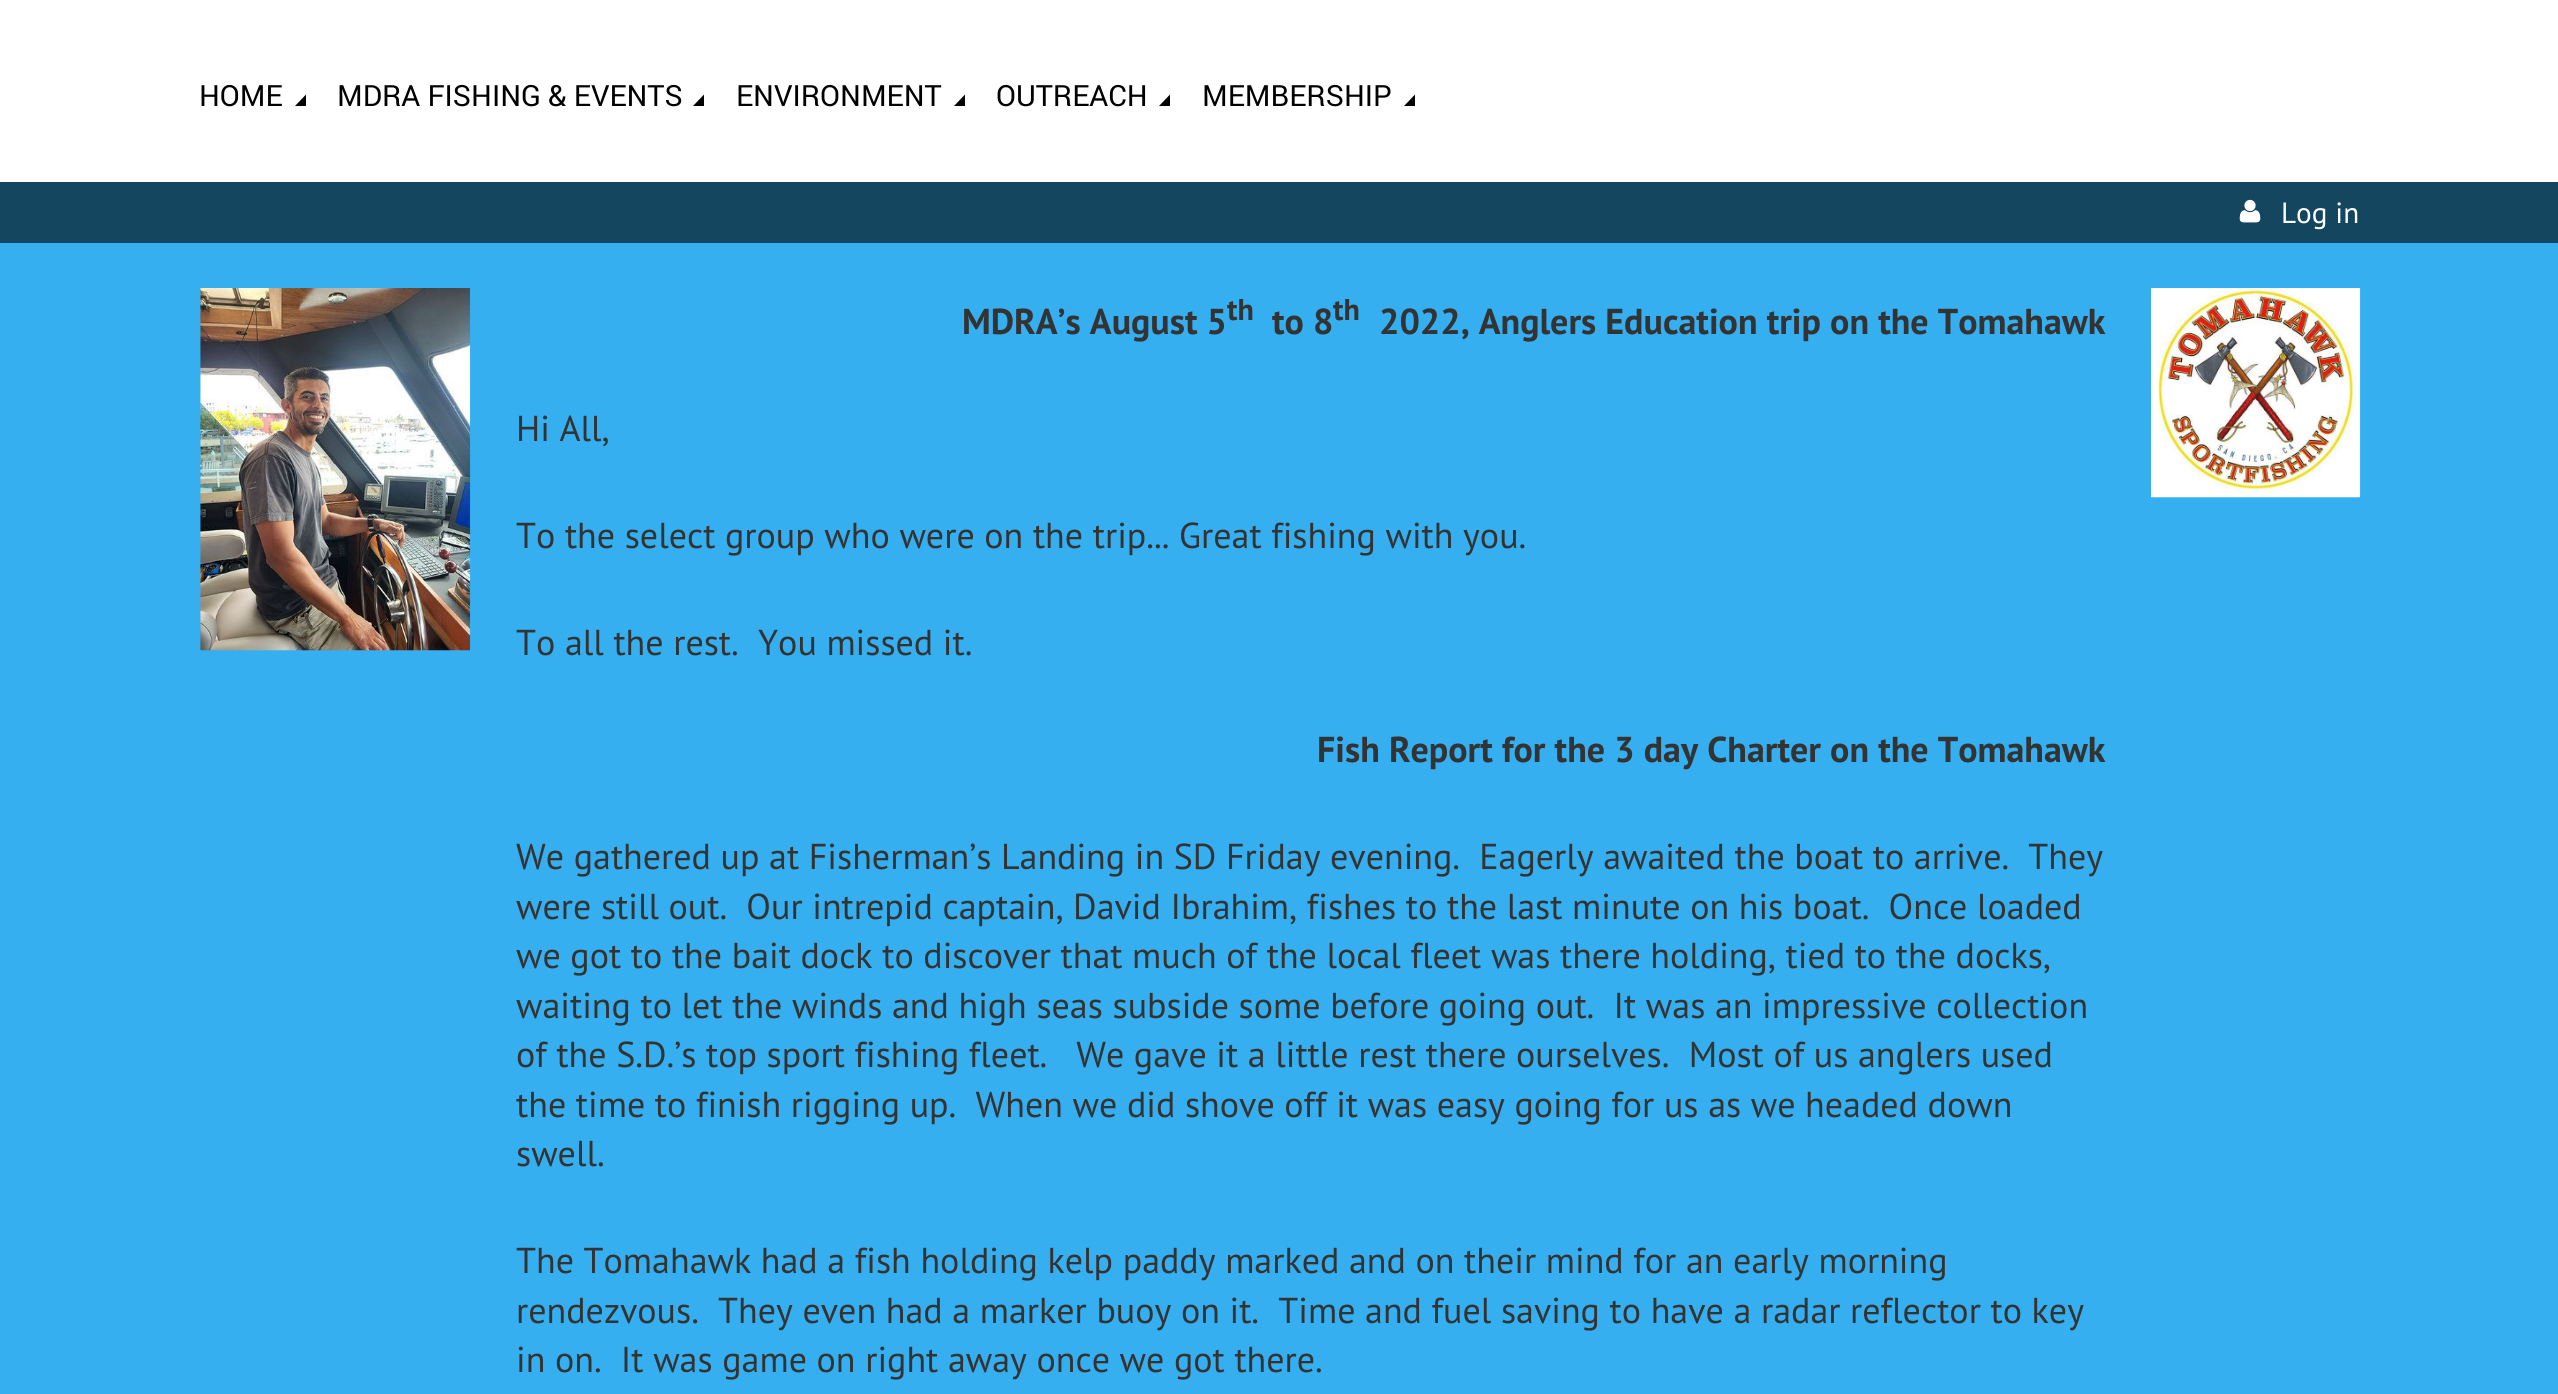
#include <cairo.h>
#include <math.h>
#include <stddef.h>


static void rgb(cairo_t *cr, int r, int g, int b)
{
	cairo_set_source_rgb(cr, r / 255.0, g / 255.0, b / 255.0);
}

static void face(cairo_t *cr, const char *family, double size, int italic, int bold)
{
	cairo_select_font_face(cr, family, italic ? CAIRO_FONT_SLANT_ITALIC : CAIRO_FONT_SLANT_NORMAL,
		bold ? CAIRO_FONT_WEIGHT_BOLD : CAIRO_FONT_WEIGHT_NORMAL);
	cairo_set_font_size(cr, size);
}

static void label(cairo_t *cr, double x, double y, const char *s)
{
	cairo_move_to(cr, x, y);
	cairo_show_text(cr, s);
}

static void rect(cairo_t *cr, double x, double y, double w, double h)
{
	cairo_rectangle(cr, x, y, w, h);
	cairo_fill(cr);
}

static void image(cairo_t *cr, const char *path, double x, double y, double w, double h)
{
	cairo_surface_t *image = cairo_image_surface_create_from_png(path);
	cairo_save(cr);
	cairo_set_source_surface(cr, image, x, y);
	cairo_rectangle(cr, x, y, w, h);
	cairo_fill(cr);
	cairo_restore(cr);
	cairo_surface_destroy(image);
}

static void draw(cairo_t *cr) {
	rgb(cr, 53, 175, 240);
	cairo_paint(cr);
	rgb(cr, 255, 255, 255);
	rect(cr, 0, 0, 2558, 182);
	face(cr, "Roboto", 29.25, 0, 0);
	rgb(cr, 0, 0, 0);
	label(cr, 199, 106, "HOME");
	cairo_new_path(cr);
	cairo_move_to(cr, 306, 106);
	cairo_line_to(cr, 295, 106);
	cairo_line_to(cr, 306, 94.5);
	cairo_close_path(cr);
	cairo_fill(cr);
	label(cr, 337, 106, "MDRA FISHING & EVENTS");
	cairo_new_path(cr);
	cairo_move_to(cr, 704, 106);
	cairo_line_to(cr, 693, 106);
	cairo_line_to(cr, 704, 94.5);
	cairo_close_path(cr);
	cairo_fill(cr);
	label(cr, 736, 106, "ENVIRONMENT");
	cairo_new_path(cr);
	cairo_move_to(cr, 965, 106);
	cairo_line_to(cr, 954, 106);
	cairo_line_to(cr, 965, 94.5);
	cairo_close_path(cr);
	cairo_fill(cr);
	label(cr, 996, 106, "OUTREACH");
	cairo_new_path(cr);
	cairo_move_to(cr, 1170, 106);
	cairo_line_to(cr, 1159, 106);
	cairo_line_to(cr, 1170, 94.5);
	cairo_close_path(cr);
	cairo_fill(cr);
	label(cr, 1202, 106, "MEMBERSHIP");
	cairo_new_path(cr);
	cairo_move_to(cr, 1415, 106);
	cairo_line_to(cr, 1404, 106);
	cairo_line_to(cr, 1415, 94.5);
	cairo_close_path(cr);
	cairo_fill(cr);
	rgb(cr, 21, 70, 96);
	rect(cr, 0, 182, 2558, 61);
	image(cr, "image0.png", 2239, 199, 22, 24);
	face(cr, "PT Sans", 29.25, 0, 0);
	rgb(cr, 255, 255, 255);
	label(cr, 2281, 223, "Log in");
	image(cr, "image1.png", 200, 288, 271, 363);
	face(cr, "PT Sans", 36, 0, 1);
	rgb(cr, 51, 51, 51);
	label(cr, 962, 334, "MDRA’s August 5");
	face(cr, "PT Sans", 30, 0, 1);
	label(cr, 1227, 320, "th");
	face(cr, "PT Sans", 36, 0, 1);
	label(cr, 1272, 334, "to 8");
	face(cr, "PT Sans", 30, 0, 1);
	label(cr, 1333, 320, "th");
	face(cr, "PT Sans", 36, 0, 1);
	label(cr, 1379, 334, "2022, Anglers Education trip on the Tomahawk");
	face(cr, "PT Sans", 36, 0, 0);
	label(cr, 516, 441, "Hi All,");
	label(cr, 516, 548, "To the select group who were on the trip... Great fishing with you.");
	label(cr, 516, 655, "To all the rest.  You missed it.");
	face(cr, "PT Sans", 36, 0, 1);
	label(cr, 1317, 762, "Fish Report for the 3 day Charter on the Tomahawk");
	face(cr, "PT Sans", 36, 0, 0);
	label(cr, 516, 869, "We gathered up at Fisherman’s Landing in SD Friday evening.  Eagerly awaited the boat to arrive.  They");
	label(cr, 516, 919, "were still out.  Our intrepid captain, David Ibrahim, fishes to the last minute on his boat.  Once loaded");
	label(cr, 516, 968, "we got to the bait dock to discover that much of the local fleet was there holding, tied to the docks,");
	label(cr, 516, 1018, "waiting to let the winds and high seas subside some before going out.  It was an impressive collection");
	label(cr, 516, 1067, "of the S.D.’s top sport fishing fleet.   We gave it a little rest there ourselves.  Most of us anglers used");
	label(cr, 516, 1117, "the time to finish rigging up.  When we did shove off it was easy going for us as we headed down");
	label(cr, 516, 1166, "swell.");
	label(cr, 516, 1273, "The Tomahawk had a fish holding kelp paddy marked and on their mind for an early morning");
	label(cr, 516, 1323, "rendezvous.  They even had a marker buoy on it.  Time and fuel saving to have a radar reflector to key");
	label(cr, 516, 1372, "in on.  It was game on right away once we got there.");
	image(cr, "image2.png", 2151, 288, 210, 210);
}

int main(void) {
	cairo_surface_t *surface = cairo_image_surface_create(CAIRO_FORMAT_RGB24, 2558, 1394);
	cairo_t *cr = cairo_create(surface);
	cairo_font_options_t *options = cairo_font_options_create();
	cairo_font_options_set_hint_metrics(options, CAIRO_HINT_METRICS_OFF);
	cairo_font_options_set_hint_style(options, CAIRO_HINT_STYLE_NONE);
	cairo_set_font_options(cr, options);
	cairo_set_miter_limit(cr, 4);
	draw(cr);
	cairo_surface_write_to_png(surface, "render.png");
	cairo_font_options_destroy(options);
	cairo_destroy(cr);
	cairo_surface_destroy(surface);
	return 0;
}
